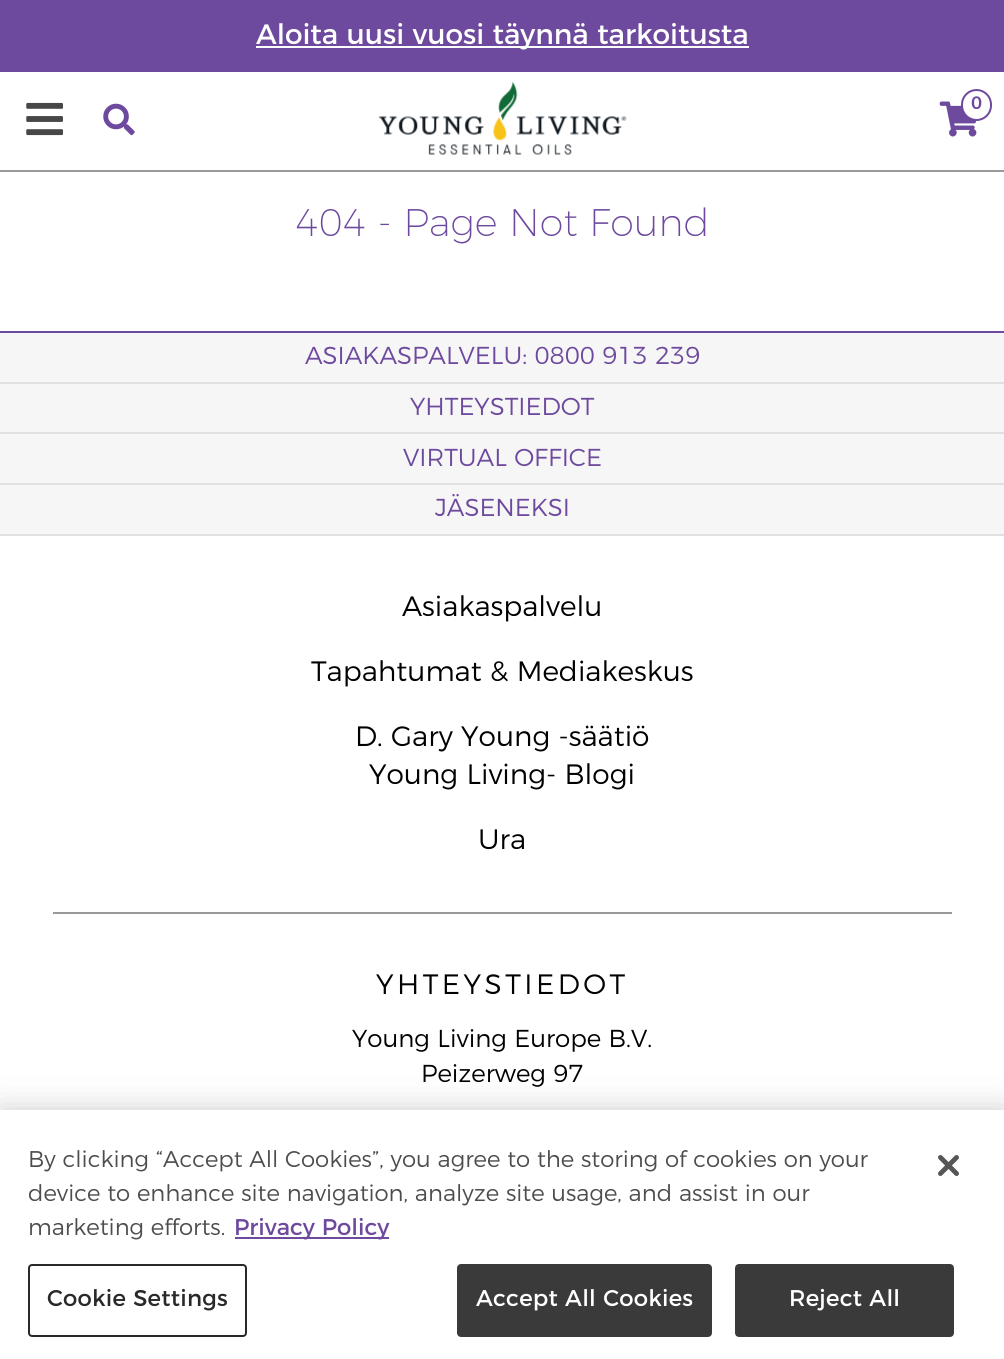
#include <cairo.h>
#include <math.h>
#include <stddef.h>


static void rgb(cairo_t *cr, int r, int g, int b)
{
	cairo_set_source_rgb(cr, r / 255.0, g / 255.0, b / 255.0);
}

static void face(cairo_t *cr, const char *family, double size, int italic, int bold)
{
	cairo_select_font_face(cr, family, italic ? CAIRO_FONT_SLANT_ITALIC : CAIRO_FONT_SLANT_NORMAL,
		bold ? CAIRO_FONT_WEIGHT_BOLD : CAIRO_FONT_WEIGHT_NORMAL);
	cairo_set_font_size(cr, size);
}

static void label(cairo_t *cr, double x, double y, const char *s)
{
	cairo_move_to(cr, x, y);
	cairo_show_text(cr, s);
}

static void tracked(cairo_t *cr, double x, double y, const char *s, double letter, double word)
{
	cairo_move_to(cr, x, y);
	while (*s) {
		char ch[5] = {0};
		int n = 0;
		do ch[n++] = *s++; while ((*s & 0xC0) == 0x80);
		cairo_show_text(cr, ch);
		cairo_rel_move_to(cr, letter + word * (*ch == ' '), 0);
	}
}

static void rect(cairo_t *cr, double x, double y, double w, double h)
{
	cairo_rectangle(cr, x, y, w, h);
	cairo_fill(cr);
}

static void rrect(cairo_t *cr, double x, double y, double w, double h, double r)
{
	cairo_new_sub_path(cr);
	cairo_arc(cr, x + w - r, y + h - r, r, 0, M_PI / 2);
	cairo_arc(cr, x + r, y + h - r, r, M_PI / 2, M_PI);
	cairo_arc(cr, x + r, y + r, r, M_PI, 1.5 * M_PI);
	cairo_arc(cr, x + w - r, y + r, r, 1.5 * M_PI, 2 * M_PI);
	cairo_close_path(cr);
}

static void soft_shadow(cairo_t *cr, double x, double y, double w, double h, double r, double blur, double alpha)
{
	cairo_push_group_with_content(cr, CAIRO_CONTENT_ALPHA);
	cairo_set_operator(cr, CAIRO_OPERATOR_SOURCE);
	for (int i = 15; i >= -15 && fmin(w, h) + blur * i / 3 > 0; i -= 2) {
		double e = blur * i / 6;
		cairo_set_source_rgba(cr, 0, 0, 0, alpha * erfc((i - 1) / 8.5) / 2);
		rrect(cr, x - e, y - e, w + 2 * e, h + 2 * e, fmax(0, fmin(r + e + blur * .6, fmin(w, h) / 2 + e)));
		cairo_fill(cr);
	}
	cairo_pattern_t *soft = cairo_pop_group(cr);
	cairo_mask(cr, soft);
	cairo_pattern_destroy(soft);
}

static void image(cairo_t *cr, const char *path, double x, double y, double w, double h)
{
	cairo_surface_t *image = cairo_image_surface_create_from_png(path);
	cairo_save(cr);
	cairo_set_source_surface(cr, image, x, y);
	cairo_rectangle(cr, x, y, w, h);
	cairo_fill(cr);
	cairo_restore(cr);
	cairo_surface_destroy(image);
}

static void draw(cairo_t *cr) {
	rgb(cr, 255, 255, 255);
	cairo_paint(cr);
	rgb(cr, 110, 74, 158);
	rect(cr, 0, 0, 1004, 72);
	rgb(cr, 255, 255, 255);
	rect(cr, 256, 46, 493, 2);
	face(cr, "Montserrat", 28, 0, 0);
	label(cr, 256, 44, "Aloita uusi vuosi täynnä tarkoitusta");
	rgb(cr, 153, 153, 153);
	rect(cr, 0, 170, 1004, 2);
	image(cr, "image0.png", 26, 102, 37, 34);
	image(cr, "image1.png", 103, 103, 32, 33);
	image(cr, "image2.png", 378, 81, 249, 74);
	image(cr, "image3.png", 939, 101, 38, 36);
	rgb(cr, 255, 255, 255);
	rrect(cr, 962, 90, 29, 30, 14.5);
	cairo_fill_preserve(cr);
	rgb(cr, 110, 74, 158);
	cairo_stroke(cr);
	face(cr, "Montserrat Medium", 18, 0, 0);
	label(cr, 971, 109, "0");
	face(cr, "Montserrat ExtraLight", 38.5, 0, 0);
	label(cr, 295, 236, "404 - Page Not Found");
	rect(cr, 0, 331, 1004, 2);
	rgb(cr, 246, 246, 246);
	rect(cr, 0, 333, 1004, 201);
	rgb(cr, 224, 224, 224);
	rect(cr, 0, 382, 1004, 2);
	face(cr, "Montserrat Light", 24.5, 0, 0);
	rgb(cr, 110, 74, 158);
	label(cr, 305, 364, "ASIAKASPALVELU: 0800 913 239");
	rgb(cr, 224, 224, 224);
	rect(cr, 0, 432, 1004, 2);
	rgb(cr, 110, 74, 158);
	label(cr, 410, 415, "YHTEYSTIEDOT");
	rgb(cr, 224, 224, 224);
	rect(cr, 0, 483, 1004, 2);
	rgb(cr, 110, 74, 158);
	label(cr, 403, 466, "VIRTUAL OFFICE");
	rgb(cr, 224, 224, 224);
	rect(cr, 0, 534, 1004, 2);
	rgb(cr, 110, 74, 158);
	label(cr, 435, 516, "JÄSENEKSI");
	face(cr, "Montserrat Light", 28, 0, 0);
	rgb(cr, 0, 0, 0);
	label(cr, 402, 616, "Asiakaspalvelu");
	label(cr, 311, 681, "Tapahtumat & Mediakeskus");
	label(cr, 355, 746, "D. Gary Young -säätiö");
	label(cr, 369, 784, "Young Living- Blogi");
	label(cr, 478, 849, "Ura");
	rgb(cr, 153, 153, 153);
	rect(cr, 53, 912, 899, 2);
	rgb(cr, 0, 0, 0);
	tracked(cr, 376, 994, "YHTEYSTIEDOT", 3.5, 0);
	face(cr, "Montserrat Light", 24.5, 0, 0);
	label(cr, 352, 1047, "Young Living Europe B.V.");
	label(cr, 421, 1082, "Peizerweg 97");
	rgb(cr, 0, 0, 0);
	soft_shadow(cr, 0, 1110, 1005, 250, 0, 16, 0.2);
	rgb(cr, 255, 255, 255);
	rect(cr, 0, 1110, 1004, 249);
	face(cr, "Montserrat Light", 22.75, 0, 0);
	rgb(cr, 77, 77, 77);
	label(cr, 28, 1167, "By clicking “Accept All Cookies”, you agree to the storing of cookies on your");
	label(cr, 28, 1201, "device to enhance site navigation, analyze site usage, and assist in our");
	label(cr, 28, 1235, "marketing efforts.");
	rgb(cr, 110, 74, 158);
	rect(cr, 235, 1237, 154, 2);
	face(cr, "Montserrat", 22.75, 0, 0);
	label(cr, 234, 1235, "Privacy Policy");
	rrect(cr, 29, 1265, 217, 71, 3);
	rgb(cr, 41, 41, 41);
	cairo_stroke(cr);
	tracked(cr, 47, 1306, "Cookie Settings", 0.25, 0);
	rgb(cr, 58, 58, 58);
	rrect(cr, 458, 1265, 253, 71, 3);
	cairo_fill_preserve(cr);
	cairo_stroke(cr);
	rgb(cr, 255, 255, 255);
	tracked(cr, 476, 1306, "Accept All Cookies", 0.25, 0);
	rgb(cr, 58, 58, 58);
	rrect(cr, 736, 1265, 217, 71, 3);
	cairo_fill_preserve(cr);
	cairo_stroke(cr);
	rgb(cr, 255, 255, 255);
	tracked(cr, 789, 1306, "Reject All", 0.25, 0);
	image(cr, "image4.png", 938, 1155, 21, 21);
}

int main(void) {
	cairo_surface_t *surface = cairo_image_surface_create(CAIRO_FORMAT_RGB24, 1004, 1359);
	cairo_t *cr = cairo_create(surface);
	cairo_font_options_t *options = cairo_font_options_create();
	cairo_font_options_set_hint_metrics(options, CAIRO_HINT_METRICS_OFF);
	cairo_font_options_set_hint_style(options, CAIRO_HINT_STYLE_NONE);
	cairo_set_font_options(cr, options);
	cairo_set_miter_limit(cr, 4);
	draw(cr);
	cairo_surface_write_to_png(surface, "render.png");
	cairo_font_options_destroy(options);
	cairo_destroy(cr);
	cairo_surface_destroy(surface);
	return 0;
}
